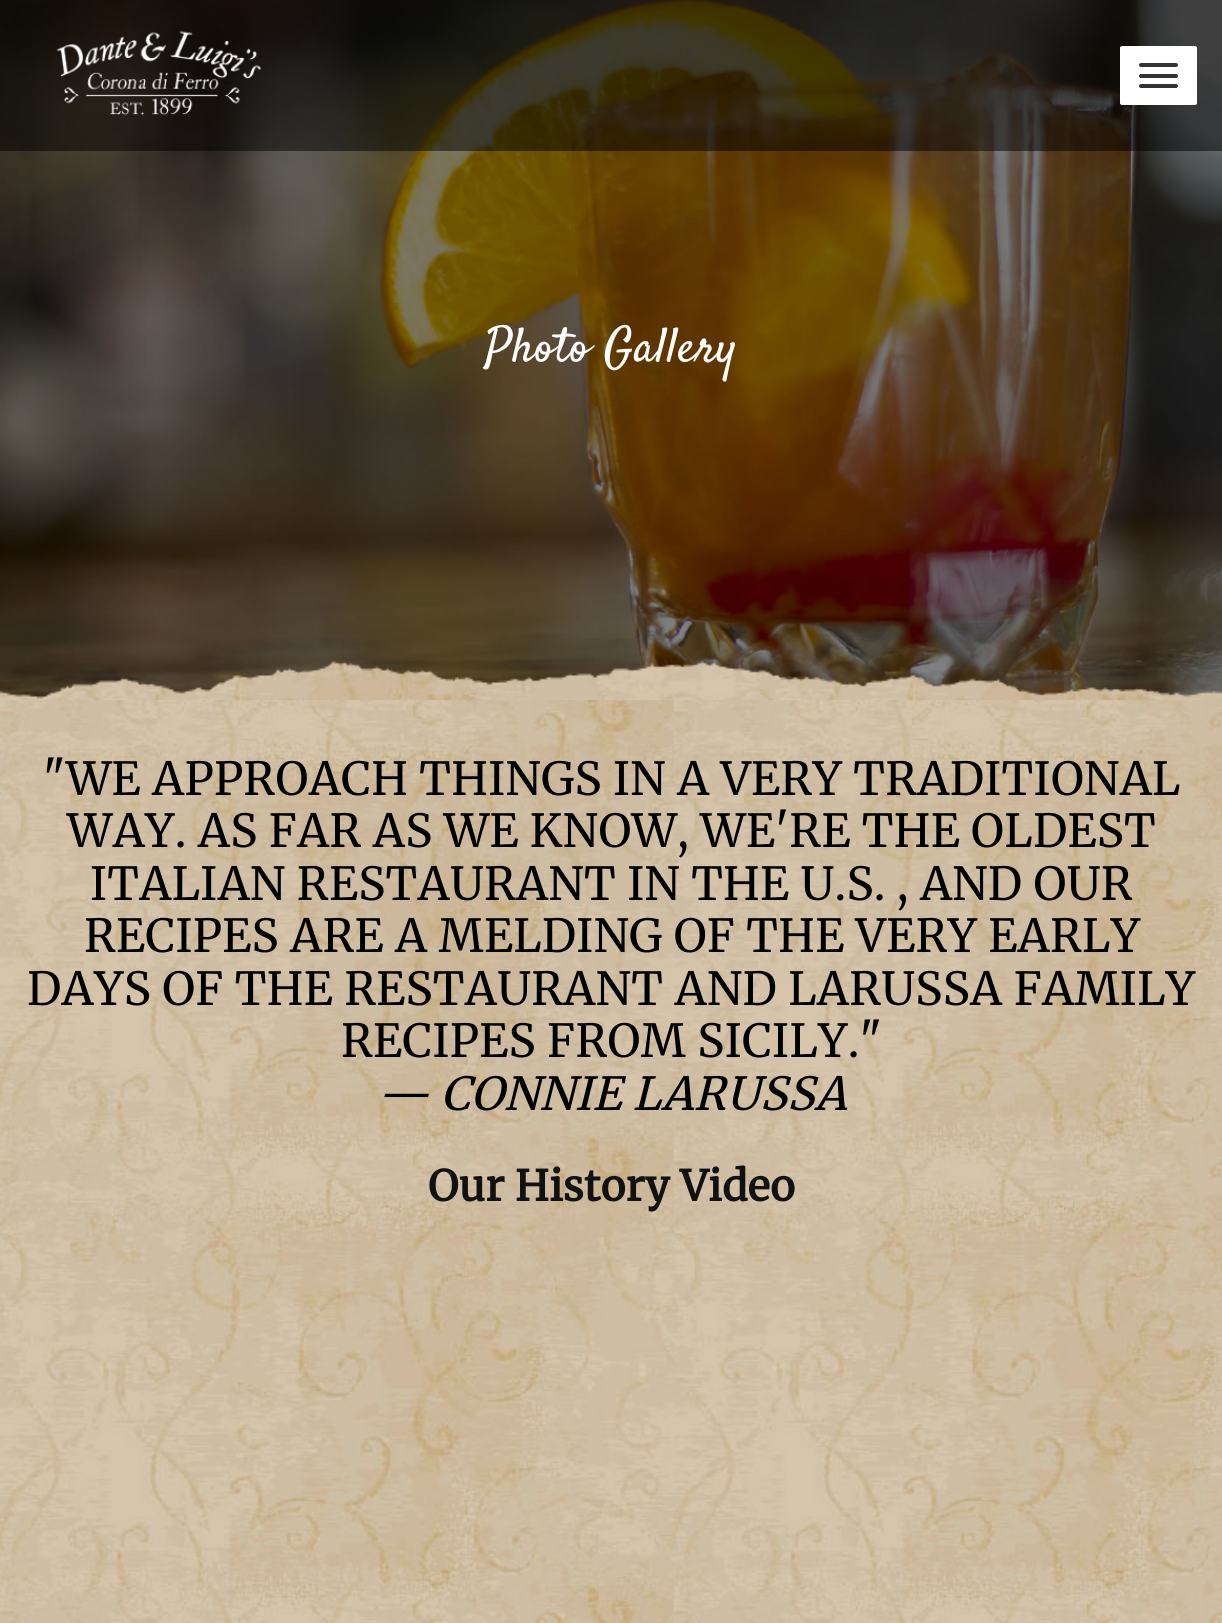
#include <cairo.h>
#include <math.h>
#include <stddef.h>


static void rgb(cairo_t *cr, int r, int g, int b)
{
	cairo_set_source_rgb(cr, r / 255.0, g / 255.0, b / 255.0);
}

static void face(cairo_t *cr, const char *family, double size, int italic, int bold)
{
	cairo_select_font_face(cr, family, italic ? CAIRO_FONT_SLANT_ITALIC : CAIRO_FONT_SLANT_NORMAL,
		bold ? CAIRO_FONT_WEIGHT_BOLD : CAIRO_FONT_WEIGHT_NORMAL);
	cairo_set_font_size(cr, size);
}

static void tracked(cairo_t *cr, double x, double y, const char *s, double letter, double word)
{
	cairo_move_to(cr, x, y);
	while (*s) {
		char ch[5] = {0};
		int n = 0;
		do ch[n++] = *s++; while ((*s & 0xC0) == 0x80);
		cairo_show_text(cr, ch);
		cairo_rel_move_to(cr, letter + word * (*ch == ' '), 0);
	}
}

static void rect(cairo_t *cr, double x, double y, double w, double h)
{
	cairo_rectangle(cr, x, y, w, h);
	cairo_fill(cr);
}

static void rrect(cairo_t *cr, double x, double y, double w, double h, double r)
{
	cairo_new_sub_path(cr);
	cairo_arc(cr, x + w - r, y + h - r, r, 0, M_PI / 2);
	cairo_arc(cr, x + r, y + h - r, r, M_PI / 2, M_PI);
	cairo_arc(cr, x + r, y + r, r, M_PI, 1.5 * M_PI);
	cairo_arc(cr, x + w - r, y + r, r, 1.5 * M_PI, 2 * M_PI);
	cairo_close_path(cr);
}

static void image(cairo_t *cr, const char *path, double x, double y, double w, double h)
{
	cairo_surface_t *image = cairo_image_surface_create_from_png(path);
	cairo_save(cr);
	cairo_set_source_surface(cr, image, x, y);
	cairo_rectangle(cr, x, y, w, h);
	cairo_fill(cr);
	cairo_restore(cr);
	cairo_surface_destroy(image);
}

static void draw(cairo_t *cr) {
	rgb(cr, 255, 255, 255);
	cairo_paint(cr);
	image(cr, "image0.png", 0, 700, 1222, 923);
	image(cr, "image2.png", 0, 0, 1222, 699);
	cairo_set_source_rgba(cr, 0, 0, 0, 0.5);
	rect(cr, 0, 0, 1222, 151);
	image(cr, "image1.png", 56, 31, 205, 85);
	rgb(cr, 255, 255, 255);
	rrect(cr, 1121, 47, 75, 57, 1);
	cairo_fill_preserve(cr);
	cairo_stroke(cr);
	rgb(cr, 51, 51, 51);
	rrect(cr, 1139, 63, 39, 4, 2);
	cairo_fill(cr);
	rrect(cr, 1139, 74, 39, 4, 2);
	cairo_fill(cr);
	rrect(cr, 1139, 84, 39, 4, 2);
	cairo_fill(cr);
	face(cr, "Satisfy", 49, 0, 0);
	rgb(cr, 255, 255, 255);
	tracked(cr, 485, 361, "Photo Gallery", 0.35, 0);
	image(cr, "image3.png", 0, 661, 1222, 39);
	face(cr, "Merriweather Light", 45.5, 0, 0);
	rgb(cr, 0, 0, 0);
	tracked(cr, 43, 795, "\"WE APPROACH THINGS IN A VERY TRADITIONAL", 0.35, 0);
	tracked(cr, 67, 847, "WAY. AS FAR AS WE KNOW, WE'RE THE OLDEST", 0.35, 0);
	tracked(cr, 90, 900, "ITALIAN RESTAURANT IN THE U.S. , AND OUR", 0.35, 0);
	tracked(cr, 84, 952, "RECIPES ARE A MELDING OF THE VERY EARLY", 0.35, 0);
	tracked(cr, 27, 1005, "DAYS OF THE RESTAURANT AND LARUSSA FAMILY", 0.35, 0);
	tracked(cr, 341, 1057, "RECIPES FROM SICILY.\"", 0.35, 0);
	face(cr, "Merriweather Light", 45.5, 1, 0);
	tracked(cr, 377, 1110, "— CONNIE LARUSSA", 0.35, 0);
	face(cr, "Merriweather", 42, 0, 1);
	rgb(cr, 17, 17, 17);
	tracked(cr, 428, 1201, "Our History Video", 0.35, 0);
}

int main(void) {
	cairo_surface_t *surface = cairo_image_surface_create(CAIRO_FORMAT_RGB24, 1222, 1623);
	cairo_t *cr = cairo_create(surface);
	cairo_font_options_t *options = cairo_font_options_create();
	cairo_font_options_set_hint_metrics(options, CAIRO_HINT_METRICS_OFF);
	cairo_font_options_set_hint_style(options, CAIRO_HINT_STYLE_NONE);
	cairo_set_font_options(cr, options);
	cairo_set_miter_limit(cr, 4);
	draw(cr);
	cairo_surface_write_to_png(surface, "render.png");
	cairo_font_options_destroy(options);
	cairo_destroy(cr);
	cairo_surface_destroy(surface);
	return 0;
}
